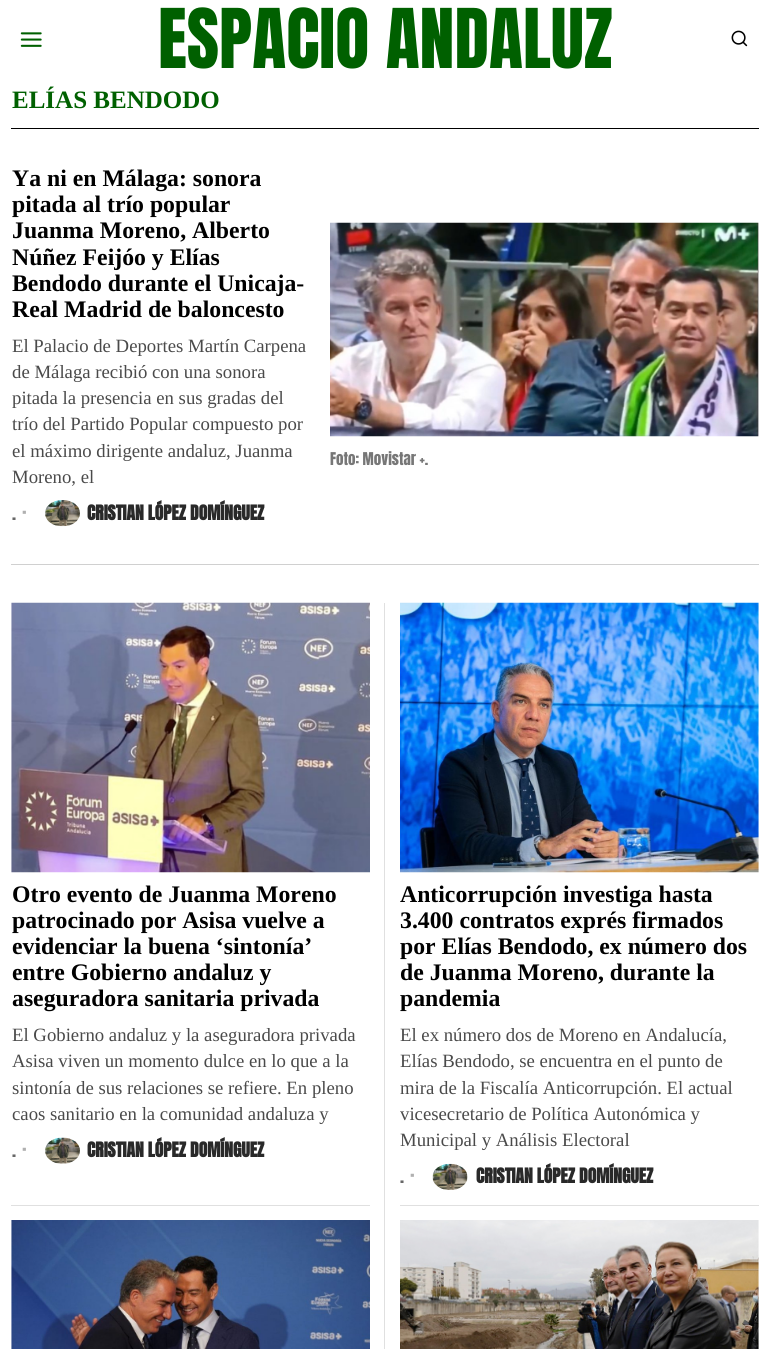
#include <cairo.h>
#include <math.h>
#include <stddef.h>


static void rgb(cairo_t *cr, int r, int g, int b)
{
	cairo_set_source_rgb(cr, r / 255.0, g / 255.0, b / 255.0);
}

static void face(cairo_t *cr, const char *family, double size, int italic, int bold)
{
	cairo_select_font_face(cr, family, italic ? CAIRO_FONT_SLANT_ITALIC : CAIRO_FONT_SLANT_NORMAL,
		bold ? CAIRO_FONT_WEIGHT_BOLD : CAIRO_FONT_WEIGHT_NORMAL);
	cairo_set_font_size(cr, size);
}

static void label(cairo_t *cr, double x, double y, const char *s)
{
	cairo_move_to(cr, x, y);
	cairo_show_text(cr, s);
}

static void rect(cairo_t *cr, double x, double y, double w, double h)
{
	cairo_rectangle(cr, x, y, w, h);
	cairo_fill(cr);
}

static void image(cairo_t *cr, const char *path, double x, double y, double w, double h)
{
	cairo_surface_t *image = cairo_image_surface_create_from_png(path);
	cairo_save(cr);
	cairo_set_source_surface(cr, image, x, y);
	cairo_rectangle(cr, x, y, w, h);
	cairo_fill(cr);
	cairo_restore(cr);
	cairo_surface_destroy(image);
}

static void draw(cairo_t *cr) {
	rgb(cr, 255, 255, 255);
	cairo_paint(cr);
	image(cr, "image0.png", 20, 32, 22, 15);
	face(cr, "Anton", 70, 0, 0);
	rgb(cr, 0, 96, 0);
	label(cr, 158, 68, "ESPACIO ANDALUZ");
	image(cr, "image1.png", 731, 30, 17, 17);
	rgb(cr, 0, 0, 0);
	rect(cr, 11, 128, 748, 1);
	face(cr, "Liberation Serif", 25, 0, 1);
	rgb(cr, 0, 96, 0);
	label(cr, 12, 108, "ELÍAS BENDODO");
	rgb(cr, 208, 208, 208);
	rect(cr, 11, 564, 748, 1);
	face(cr, "Liberation Serif", 23.75, 0, 1);
	rgb(cr, 0, 0, 0);
	label(cr, 12, 186, "Ya ni en Málaga: sonora");
	label(cr, 12, 212, "pitada al trío popular");
	label(cr, 12, 238, "Juanma Moreno, Alberto");
	label(cr, 12, 265, "Núñez Feijóo y Elías");
	label(cr, 12, 291, "Bendodo durante el Unicaja-");
	label(cr, 12, 317, "Real Madrid de baloncesto");
	face(cr, "Liberation Serif", 18.75, 0, 0);
	rgb(cr, 74, 74, 74);
	label(cr, 12, 352, "El Palacio de Deportes Martín Carpena");
	label(cr, 12, 378, "de Málaga recibió con una sonora");
	label(cr, 12, 404, "pitada la presencia en sus gradas del");
	label(cr, 12, 430, "trío del Partido Popular compuesto por");
	label(cr, 12, 457, "el máximo dirigente andaluz, Juanma");
	label(cr, 12, 483, "Moreno, el");
	face(cr, "Anton", 17.5, 0, 0);
	rgb(cr, 102, 102, 102);
	label(cr, 12, 520, ".");
	face(cr, "Anton", 17.5, 0, 1);
	rgb(cr, 176, 176, 176);
	label(cr, 22, 520, "·");
	image(cr, "image2.png", 45, 500, 35, 27);
	rgb(cr, 41, 41, 41);
	label(cr, 87, 520, "CRISTIAN LÓPEZ DOMÍNGUEZ");
	image(cr, "image3.png", 330, 222, 429, 215);
	face(cr, "Anton", 15, 0, 0);
	rgb(cr, 119, 119, 119);
	label(cr, 330, 465, "Foto: Movistar +.");
	image(cr, "image4.png", 11, 602, 359, 271);
	face(cr, "Liberation Serif", 23.75, 0, 1);
	rgb(cr, 0, 0, 0);
	label(cr, 12, 902, "Otro evento de Juanma Moreno");
	label(cr, 12, 928, "patrocinado por Asisa vuelve a");
	label(cr, 12, 954, "evidenciar la buena ‘sintonía’");
	label(cr, 12, 980, "entre Gobierno andaluz y");
	label(cr, 12, 1006, "aseguradora sanitaria privada");
	face(cr, "Liberation Serif", 18.75, 0, 0);
	rgb(cr, 74, 74, 74);
	label(cr, 12, 1041, "El Gobierno andaluz y la aseguradora privada");
	label(cr, 12, 1067, "Asisa viven un momento dulce en lo que a la");
	label(cr, 12, 1094, "sintonía de sus relaciones se refiere. En pleno");
	label(cr, 12, 1120, "caos sanitario en la comunidad andaluza y");
	face(cr, "Anton", 17.5, 0, 0);
	rgb(cr, 102, 102, 102);
	label(cr, 12, 1157, ".");
	face(cr, "Anton", 17.5, 0, 1);
	rgb(cr, 176, 176, 176);
	label(cr, 22, 1157, "·");
	image(cr, "image5.png", 45, 1137, 35, 27);
	rgb(cr, 41, 41, 41);
	label(cr, 87, 1157, "CRISTIAN LÓPEZ DOMÍNGUEZ");
	rgb(cr, 224, 224, 224);
	rect(cr, 384, 603, 1, 746);
	image(cr, "image6.png", 400, 602, 359, 271);
	face(cr, "Liberation Serif", 23.75, 0, 1);
	rgb(cr, 0, 0, 0);
	label(cr, 400, 902, "Anticorrupción investiga hasta");
	label(cr, 400, 928, "3.400 contratos exprés firmados");
	label(cr, 400, 954, "por Elías Bendodo, ex número dos");
	label(cr, 400, 980, "de Juanma Moreno, durante la");
	label(cr, 400, 1006, "pandemia");
	face(cr, "Liberation Serif", 18.75, 0, 0);
	rgb(cr, 74, 74, 74);
	label(cr, 400, 1041, "El ex número dos de Moreno en Andalucía,");
	label(cr, 400, 1067, "Elías Bendodo, se encuentra en el punto de");
	label(cr, 400, 1094, "mira de la Fiscalía Anticorrupción. El actual");
	label(cr, 400, 1120, "vicesecretario de Política Autonómica y");
	label(cr, 400, 1146, "Municipal y Análisis Electoral");
	face(cr, "Anton", 17.5, 0, 0);
	rgb(cr, 102, 102, 102);
	label(cr, 400, 1183, ".");
	face(cr, "Anton", 17.5, 0, 1);
	rgb(cr, 176, 176, 176);
	label(cr, 410, 1183, "·");
	image(cr, "image7.png", 432, 1163, 36, 27);
	rgb(cr, 41, 41, 41);
	label(cr, 476, 1183, "CRISTIAN LÓPEZ DOMÍNGUEZ");
	rgb(cr, 224, 224, 224);
	rect(cr, 11, 1205, 359, 1);
	image(cr, "image8.png", 11, 1220, 359, 129);
	rect(cr, 400, 1205, 359, 1);
	image(cr, "image9.png", 400, 1220, 359, 129);
}

int main(void) {
	cairo_surface_t *surface = cairo_image_surface_create(CAIRO_FORMAT_RGB24, 770, 1349);
	cairo_t *cr = cairo_create(surface);
	cairo_font_options_t *options = cairo_font_options_create();
	cairo_font_options_set_hint_metrics(options, CAIRO_HINT_METRICS_OFF);
	cairo_font_options_set_hint_style(options, CAIRO_HINT_STYLE_NONE);
	cairo_set_font_options(cr, options);
	cairo_set_miter_limit(cr, 4);
	draw(cr);
	cairo_surface_write_to_png(surface, "render.png");
	cairo_font_options_destroy(options);
	cairo_destroy(cr);
	cairo_surface_destroy(surface);
	return 0;
}
